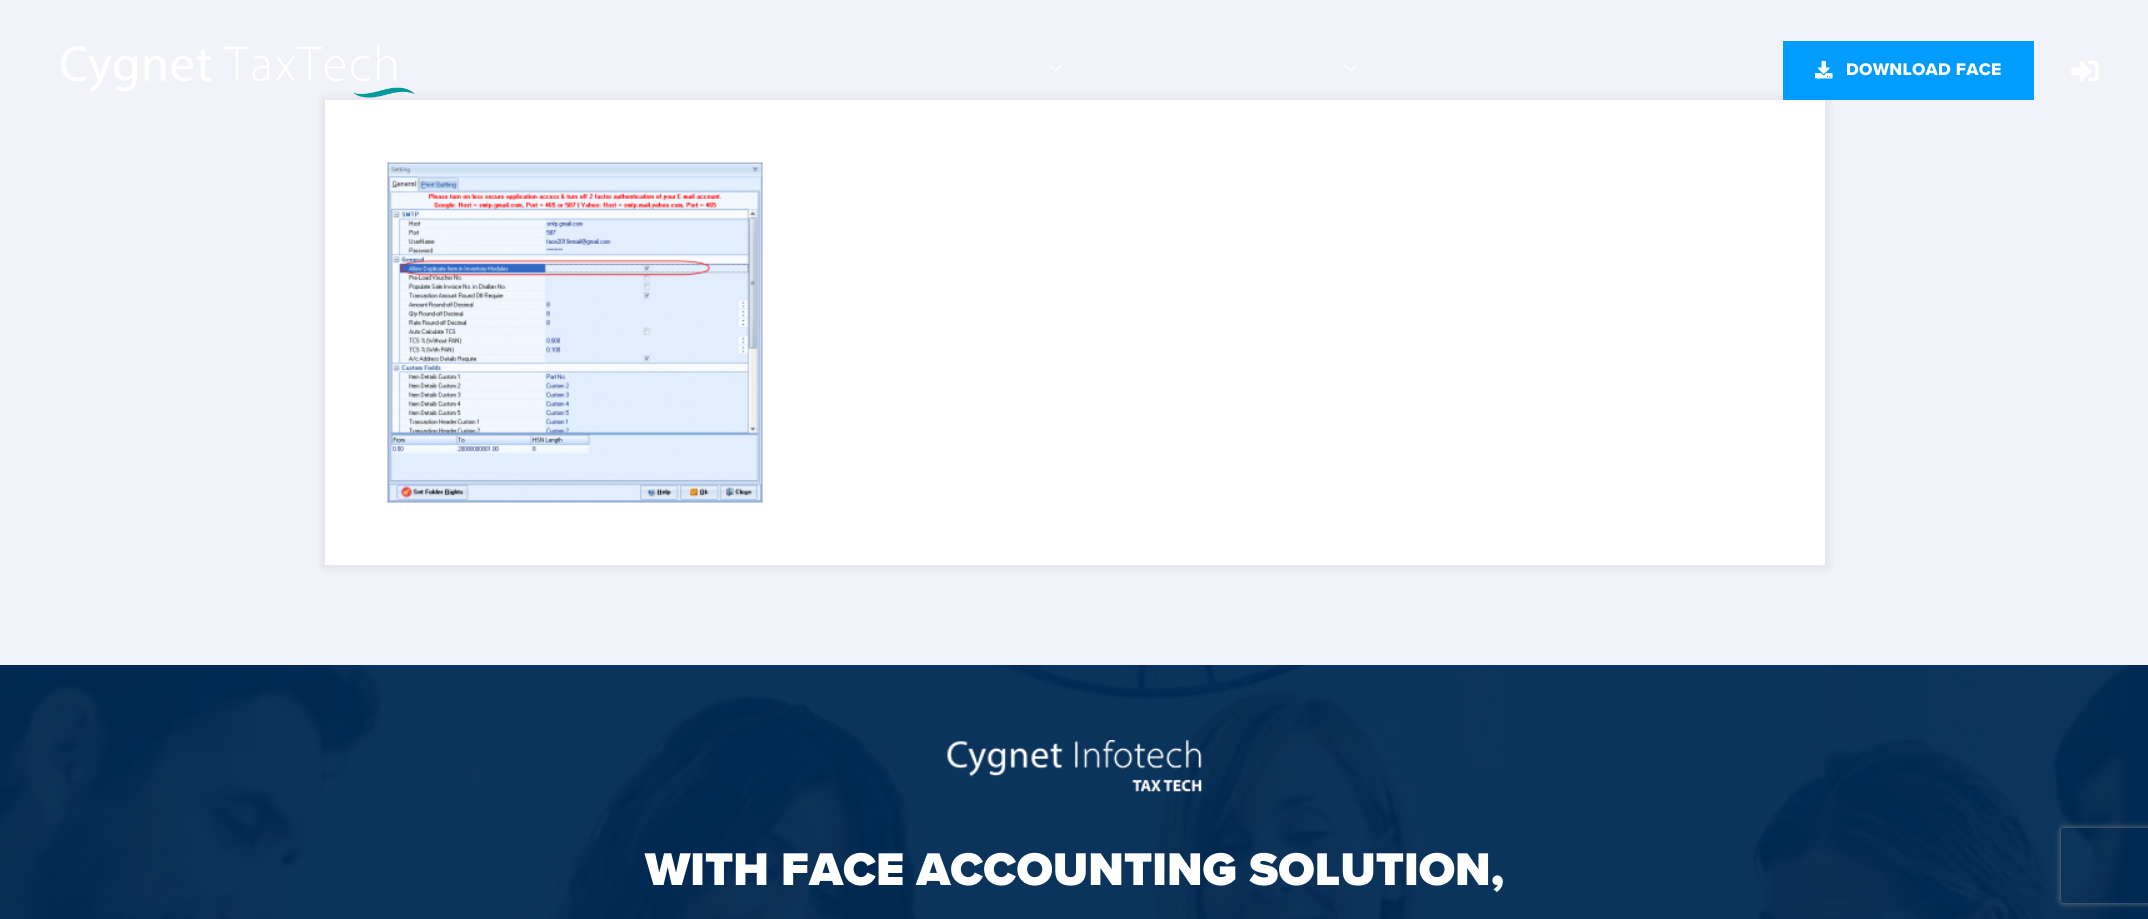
#include <cairo.h>
#include <math.h>
#include <stddef.h>


static void rgb(cairo_t *cr, int r, int g, int b)
{
	cairo_set_source_rgb(cr, r / 255.0, g / 255.0, b / 255.0);
}

static void face(cairo_t *cr, const char *family, double size, int italic, int bold)
{
	cairo_select_font_face(cr, family, italic ? CAIRO_FONT_SLANT_ITALIC : CAIRO_FONT_SLANT_NORMAL,
		bold ? CAIRO_FONT_WEIGHT_BOLD : CAIRO_FONT_WEIGHT_NORMAL);
	cairo_set_font_size(cr, size);
}

static void label(cairo_t *cr, double x, double y, const char *s)
{
	cairo_move_to(cr, x, y);
	cairo_show_text(cr, s);
}

static void tracked(cairo_t *cr, double x, double y, const char *s, double letter, double word)
{
	cairo_move_to(cr, x, y);
	while (*s) {
		char ch[5] = {0};
		int n = 0;
		do ch[n++] = *s++; while ((*s & 0xC0) == 0x80);
		cairo_show_text(cr, ch);
		cairo_rel_move_to(cr, letter + word * (*ch == ' '), 0);
	}
}

static void rect(cairo_t *cr, double x, double y, double w, double h)
{
	cairo_rectangle(cr, x, y, w, h);
	cairo_fill(cr);
}

static void rrect(cairo_t *cr, double x, double y, double w, double h, double r)
{
	cairo_new_sub_path(cr);
	cairo_arc(cr, x + w - r, y + h - r, r, 0, M_PI / 2);
	cairo_arc(cr, x + r, y + h - r, r, M_PI / 2, M_PI);
	cairo_arc(cr, x + r, y + r, r, M_PI, 1.5 * M_PI);
	cairo_arc(cr, x + w - r, y + r, r, 1.5 * M_PI, 2 * M_PI);
	cairo_close_path(cr);
}

static void soft_shadow(cairo_t *cr, double x, double y, double w, double h, double r, double blur, double alpha)
{
	cairo_push_group_with_content(cr, CAIRO_CONTENT_ALPHA);
	cairo_set_operator(cr, CAIRO_OPERATOR_SOURCE);
	for (int i = 15; i >= -15 && fmin(w, h) + blur * i / 3 > 0; i -= 2) {
		double e = blur * i / 6;
		cairo_set_source_rgba(cr, 0, 0, 0, alpha * erfc((i - 1) / 8.5) / 2);
		rrect(cr, x - e, y - e, w + 2 * e, h + 2 * e, fmax(0, fmin(r + e + blur * .6, fmin(w, h) / 2 + e)));
		cairo_fill(cr);
	}
	cairo_pattern_t *soft = cairo_pop_group(cr);
	cairo_mask(cr, soft);
	cairo_pattern_destroy(soft);
}

static void image(cairo_t *cr, const char *path, double x, double y, double w, double h)
{
	cairo_surface_t *image = cairo_image_surface_create_from_png(path);
	cairo_save(cr);
	cairo_set_source_surface(cr, image, x, y);
	cairo_rectangle(cr, x, y, w, h);
	cairo_fill(cr);
	cairo_restore(cr);
	cairo_surface_destroy(image);
}

static void draw(cairo_t *cr) {
	rgb(cr, 241, 243, 248);
	cairo_paint(cr);
	rgb(cr, 0, 0, 0);
	soft_shadow(cr, 323, 98, 1505, 470, 0, 5, 0.08);
	image(cr, "image0.png", 61, 45, 354, 53);
	image(cr, "image1.png", 1049, 64, 13, 8);
	image(cr, "image1.png", 1344, 64, 13, 8);
	rgb(cr, 0, 156, 255);
	rect(cr, 1783, 41, 251, 59);
	image(cr, "image2.png", 1815, 60, 18, 19);
	face(cr, "Proxima Nova ExtraBold", 17.5, 0, 0);
	rgb(cr, 255, 255, 255);
	tracked(cr, 1846, 75, "DOWNLOAD FACE", 0.25, 0);
	image(cr, "image3.png", 2071, 60, 28, 22);
	rect(cr, 325, 100, 1500, 465);
	image(cr, "image4.png", 387, 162, 376, 341);
	rgb(cr, 0, 42, 84);
	rect(cr, 0, 665, 2148, 254);
	image(cr, "image5.png", 0, 665, 2129, 254);
	image(cr, "image6.png", 947, 740, 255, 52);
	face(cr, "Proxima Nova Black", 47.5, 0, 0);
	rgb(cr, 255, 255, 255);
	label(cr, 645, 885, "WITH FACE ACCOUNTING SOLUTION,");
	cairo_save(cr);
	cairo_set_fill_rule(cr, CAIRO_FILL_RULE_EVEN_ODD);
	cairo_new_path(cr);
	cairo_move_to(cr, 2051, 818);
	cairo_line_to(cr, 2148, 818);
	cairo_line_to(cr, 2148, 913);
	cairo_line_to(cr, 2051, 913);
	cairo_close_path(cr);
	cairo_move_to(cr, 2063.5, 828);
	cairo_line_to(cr, 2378.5, 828);
	cairo_curve_to(cr, 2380, 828, 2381, 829, 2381, 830.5);
	cairo_line_to(cr, 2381, 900.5);
	cairo_curve_to(cr, 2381, 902, 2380, 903, 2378.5, 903);
	cairo_line_to(cr, 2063.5, 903);
	cairo_curve_to(cr, 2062, 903, 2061, 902, 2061, 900.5);
	cairo_line_to(cr, 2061, 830.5);
	cairo_curve_to(cr, 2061, 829, 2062, 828, 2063.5, 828);
	cairo_close_path(cr);
	cairo_clip(cr);
	rgb(cr, 128, 128, 128);
	soft_shadow(cr, 2061, 828, 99, 75, 2.5, 3, 1);
	cairo_restore(cr);
}

int main(void) {
	cairo_surface_t *surface = cairo_image_surface_create(CAIRO_FORMAT_RGB24, 2148, 919);
	cairo_t *cr = cairo_create(surface);
	cairo_font_options_t *options = cairo_font_options_create();
	cairo_font_options_set_hint_metrics(options, CAIRO_HINT_METRICS_OFF);
	cairo_font_options_set_hint_style(options, CAIRO_HINT_STYLE_NONE);
	cairo_set_font_options(cr, options);
	cairo_set_miter_limit(cr, 4);
	draw(cr);
	cairo_surface_write_to_png(surface, "render.png");
	cairo_font_options_destroy(options);
	cairo_destroy(cr);
	cairo_surface_destroy(surface);
	return 0;
}
